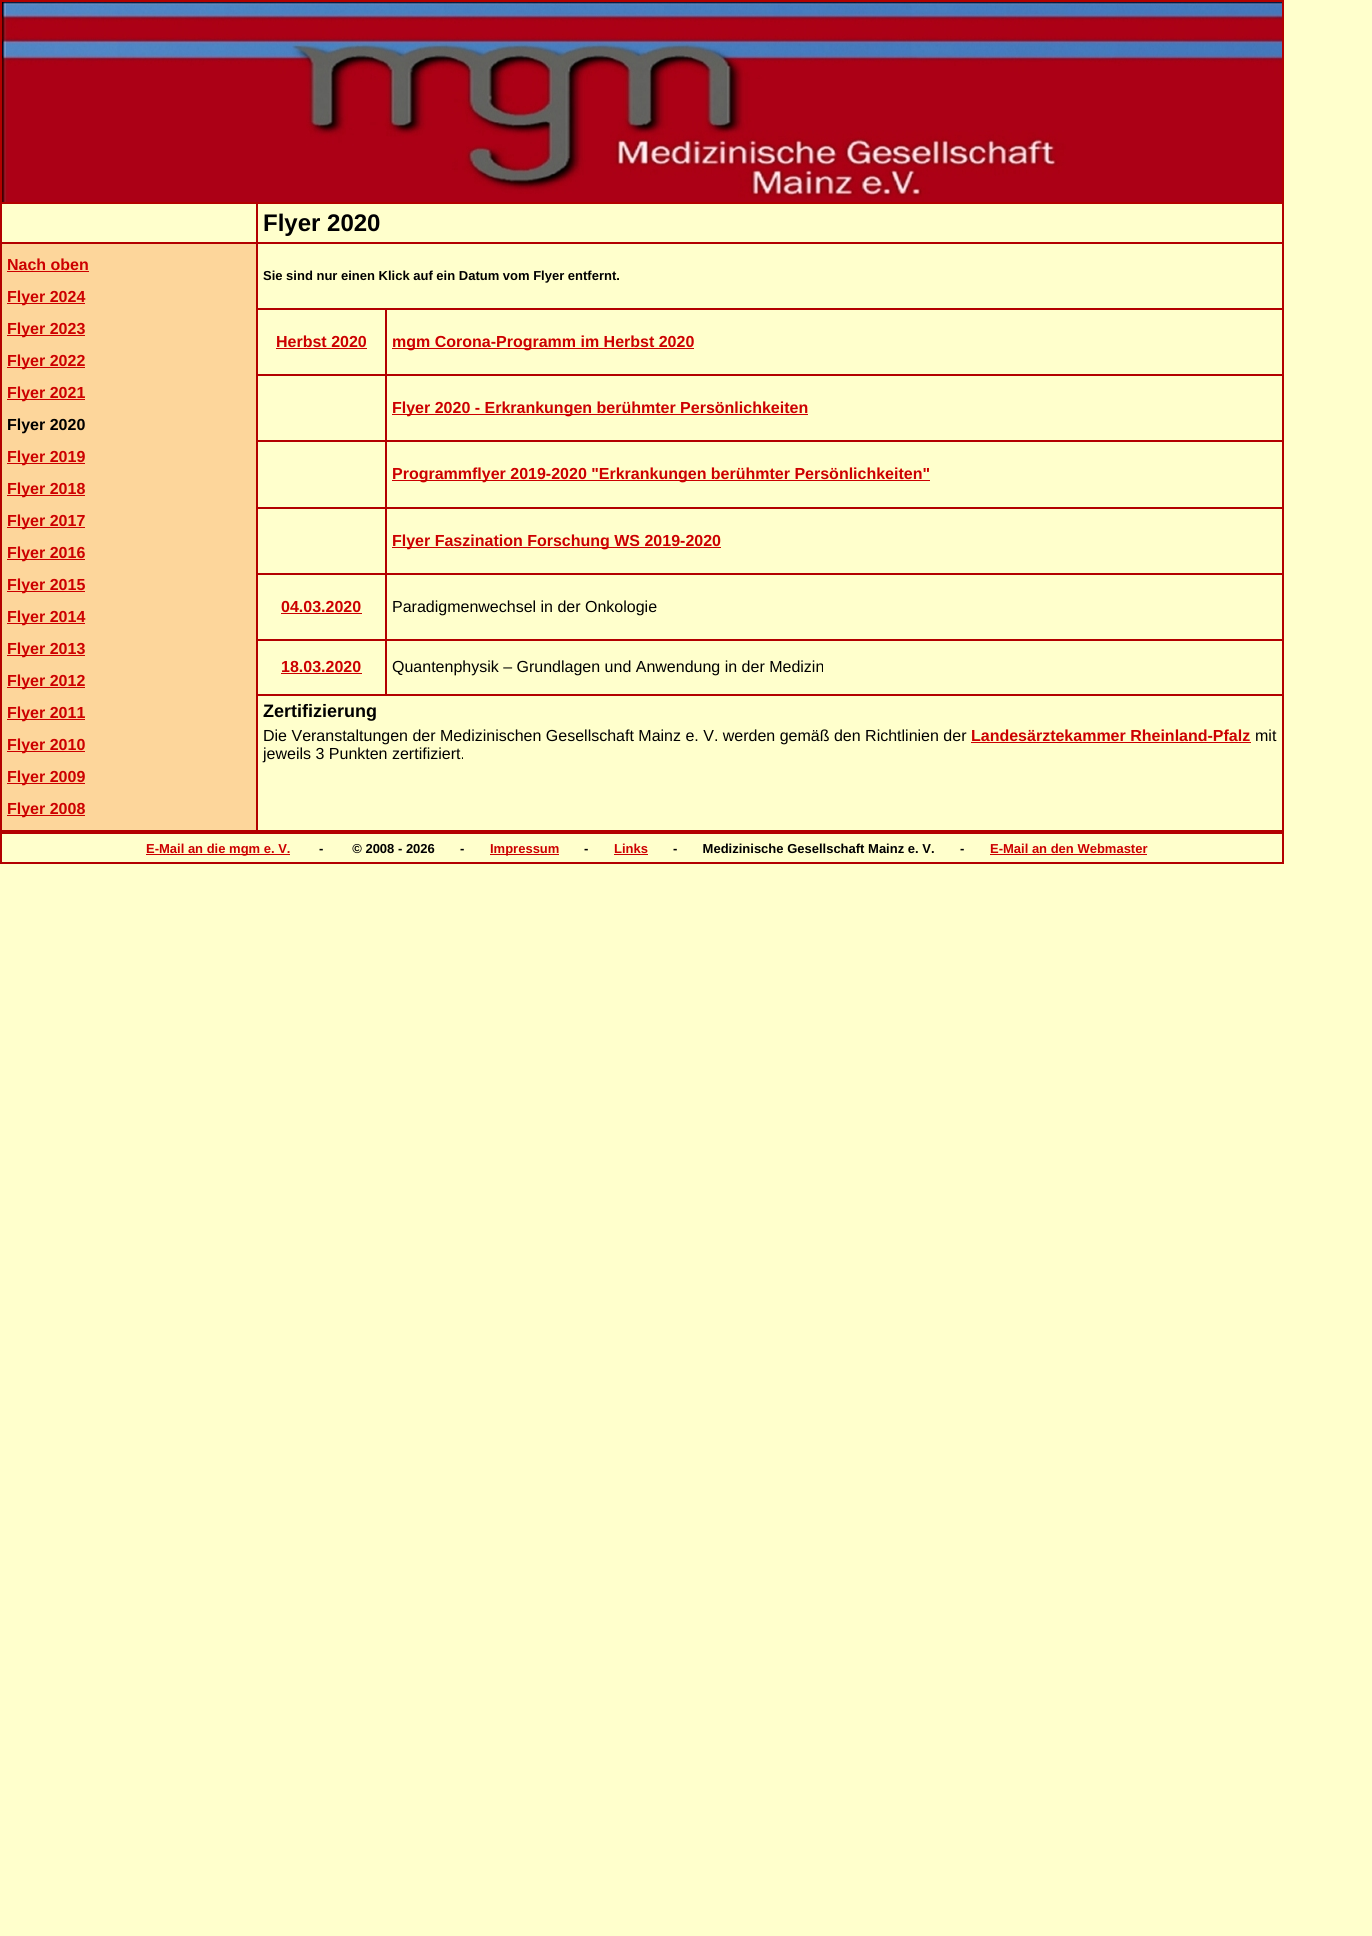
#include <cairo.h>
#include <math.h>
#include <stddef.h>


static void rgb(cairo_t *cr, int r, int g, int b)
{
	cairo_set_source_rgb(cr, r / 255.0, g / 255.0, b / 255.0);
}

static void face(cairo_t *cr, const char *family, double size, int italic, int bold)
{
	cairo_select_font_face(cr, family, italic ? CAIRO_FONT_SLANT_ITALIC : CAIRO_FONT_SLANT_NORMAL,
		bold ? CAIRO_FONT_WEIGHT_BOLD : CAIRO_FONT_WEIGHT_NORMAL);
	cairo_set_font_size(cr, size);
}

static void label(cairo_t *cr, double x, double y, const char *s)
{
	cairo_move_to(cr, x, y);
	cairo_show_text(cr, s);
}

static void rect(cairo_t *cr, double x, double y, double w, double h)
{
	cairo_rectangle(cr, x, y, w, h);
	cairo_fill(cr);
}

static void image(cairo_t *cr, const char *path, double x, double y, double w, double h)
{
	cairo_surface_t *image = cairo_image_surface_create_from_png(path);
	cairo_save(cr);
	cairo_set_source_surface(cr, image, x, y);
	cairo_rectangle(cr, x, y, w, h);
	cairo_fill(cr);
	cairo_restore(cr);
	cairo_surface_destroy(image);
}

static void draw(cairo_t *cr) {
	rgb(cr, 255, 255, 204);
	cairo_paint(cr);
	cairo_rectangle(cr, 0.5, 0.5, 1283, 831);
	rgb(cr, 179, 0, 0);
	cairo_set_line_width(cr, 1);
	cairo_stroke(cr);
	cairo_rectangle(cr, 1.5, 1.5, 1281, 201);
	cairo_stroke(cr);
	image(cr, "image0.png", 2, 2, 1280, 200);
	cairo_rectangle(cr, 1.5, 203.5, 255, 39);
	cairo_stroke(cr);
	cairo_rectangle(cr, 257.5, 203.5, 1025, 39);
	cairo_stroke(cr);
	face(cr, "Liberation Sans", 24, 0, 1);
	rgb(cr, 0, 0, 0);
	label(cr, 263, 231, "Flyer 2020");
	rgb(cr, 253, 214, 155);
	cairo_rectangle(cr, 1.5, 243.5, 255, 587);
	cairo_fill_preserve(cr);
	rgb(cr, 179, 0, 0);
	cairo_stroke(cr);
	face(cr, "Liberation Sans", 16, 0, 1);
	rgb(cr, 204, 0, 0);
	label(cr, 7, 270, "Nach oben");
	rect(cr, 7, 271, 82, 1);
	rect(cr, 7, 303, 78, 1);
	label(cr, 7, 302, "Flyer 2024");
	rect(cr, 7, 335, 78, 1);
	label(cr, 7, 334, "Flyer 2023");
	rect(cr, 7, 367, 78, 1);
	label(cr, 7, 366, "Flyer 2022");
	rect(cr, 7, 399, 78, 1);
	label(cr, 7, 398, "Flyer 2021");
	rgb(cr, 0, 0, 0);
	label(cr, 7, 430, "Flyer 2020");
	rgb(cr, 204, 0, 0);
	rect(cr, 7, 463, 78, 1);
	label(cr, 7, 462, "Flyer 2019");
	rect(cr, 7, 495, 78, 1);
	label(cr, 7, 494, "Flyer 2018");
	rect(cr, 7, 527, 78, 1);
	label(cr, 7, 526, "Flyer 2017");
	rect(cr, 7, 559, 78, 1);
	label(cr, 7, 558, "Flyer 2016");
	rect(cr, 7, 591, 78, 1);
	label(cr, 7, 590, "Flyer 2015");
	rect(cr, 7, 623, 78, 1);
	label(cr, 7, 622, "Flyer 2014");
	rect(cr, 7, 655, 78, 1);
	label(cr, 7, 654, "Flyer 2013");
	rect(cr, 7, 687, 78, 1);
	label(cr, 7, 686, "Flyer 2012");
	rect(cr, 7, 719, 78, 1);
	label(cr, 7, 718, "Flyer 2011");
	rect(cr, 7, 751, 78, 1);
	label(cr, 7, 750, "Flyer 2010");
	rect(cr, 7, 783, 78, 1);
	label(cr, 7, 782, "Flyer 2009");
	rect(cr, 7, 815, 78, 1);
	label(cr, 7, 814, "Flyer 2008");
	cairo_rectangle(cr, 257.5, 243.5, 1025, 65);
	rgb(cr, 179, 0, 0);
	cairo_stroke(cr);
	face(cr, "Liberation Sans", 13, 0, 1);
	rgb(cr, 0, 0, 0);
	label(cr, 263, 280, "Sie sind nur einen Klick auf ein Datum vom Flyer entfernt.");
	cairo_rectangle(cr, 257.5, 309.5, 128, 65);
	rgb(cr, 179, 0, 0);
	cairo_stroke(cr);
	face(cr, "Liberation Sans", 16, 0, 1);
	rgb(cr, 204, 0, 0);
	label(cr, 276, 347, "Herbst 2020");
	rect(cr, 276, 348, 91, 1);
	cairo_rectangle(cr, 386.5, 309.5, 896, 65);
	rgb(cr, 179, 0, 0);
	cairo_stroke(cr);
	rgb(cr, 204, 0, 0);
	rect(cr, 392, 348, 302, 1);
	label(cr, 392, 347, "mgm Corona-Programm im Herbst 2020");
	cairo_rectangle(cr, 257.5, 375.5, 128, 65);
	rgb(cr, 179, 0, 0);
	cairo_stroke(cr);
	cairo_rectangle(cr, 386.5, 375.5, 896, 65);
	cairo_stroke(cr);
	rgb(cr, 204, 0, 0);
	rect(cr, 392, 414, 416, 1);
	label(cr, 392, 413, "Flyer 2020 - Erkrankungen berühmter Persönlichkeiten");
	cairo_rectangle(cr, 257.5, 441.5, 128, 66);
	rgb(cr, 179, 0, 0);
	cairo_stroke(cr);
	cairo_rectangle(cr, 386.5, 441.5, 896, 66);
	cairo_stroke(cr);
	rgb(cr, 204, 0, 0);
	rect(cr, 392, 480, 538, 1);
	label(cr, 392, 479, "Programmflyer 2019-2020 \"Erkrankungen berühmter Persönlichkeiten\"");
	cairo_rectangle(cr, 257.5, 508.5, 128, 65);
	rgb(cr, 179, 0, 0);
	cairo_stroke(cr);
	cairo_rectangle(cr, 386.5, 508.5, 896, 65);
	cairo_stroke(cr);
	rgb(cr, 204, 0, 0);
	rect(cr, 392, 547, 329, 1);
	label(cr, 392, 546, "Flyer Faszination Forschung WS 2019-2020");
	cairo_rectangle(cr, 257.5, 574.5, 128, 65);
	rgb(cr, 179, 0, 0);
	cairo_stroke(cr);
	rgb(cr, 204, 0, 0);
	label(cr, 281, 612, "04.03.2020");
	rect(cr, 281, 613, 81, 1);
	cairo_rectangle(cr, 386.5, 574.5, 896, 65);
	rgb(cr, 179, 0, 0);
	cairo_stroke(cr);
	face(cr, "Liberation Sans", 16, 0, 0);
	rgb(cr, 0, 0, 0);
	label(cr, 392, 612, "Paradigmenwechsel in der Onkologie");
	cairo_rectangle(cr, 257.5, 640.5, 128, 54);
	rgb(cr, 179, 0, 0);
	cairo_stroke(cr);
	face(cr, "Liberation Sans", 16, 0, 1);
	rgb(cr, 204, 0, 0);
	label(cr, 281, 672, "18.03.2020");
	rect(cr, 281, 673, 81, 1);
	cairo_rectangle(cr, 386.5, 640.5, 896, 54);
	rgb(cr, 179, 0, 0);
	cairo_stroke(cr);
	face(cr, "Liberation Sans", 16, 0, 0);
	rgb(cr, 0, 0, 0);
	label(cr, 392, 672, "Quantenphysik – Grundlagen und Anwendung in der Medizin");
	cairo_rectangle(cr, 257.5, 695.5, 1025, 135);
	rgb(cr, 179, 0, 0);
	cairo_stroke(cr);
	face(cr, "Liberation Sans", 18, 0, 1);
	rgb(cr, 0, 0, 0);
	label(cr, 263, 717, "Zertifizierung");
	face(cr, "Liberation Sans", 16, 0, 0);
	label(cr, 263, 741, "Die Veranstaltungen der Medizinischen Gesellschaft Mainz e. V. werden gemäß den Richtlinien der");
	face(cr, "Liberation Sans", 16, 0, 1);
	rgb(cr, 204, 0, 0);
	label(cr, 971, 741, "Landesärztekammer Rheinland-Pfalz");
	rect(cr, 971, 742, 280, 1);
	face(cr, "Liberation Sans", 16, 0, 0);
	rgb(cr, 0, 0, 0);
	label(cr, 1255, 741, "mit");
	label(cr, 263, 759, "jeweils 3 Punkten zertifiziert.");
	rgb(cr, 179, 0, 0);
	rect(cr, 0, 832, 1284, 2);
	rect(cr, 1282, 832, 2, 32);
	rect(cr, 0, 862, 1284, 2);
	rect(cr, 0, 832, 2, 32);
	rgb(cr, 204, 0, 0);
	rect(cr, 146, 854, 144, 1);
	face(cr, "Liberation Sans", 13, 0, 1);
	label(cr, 146, 853, "E-Mail an die mgm e. V.");
	rgb(cr, 0, 0, 0);
	label(cr, 319, 853, "-        © 2008 - 2026       -");
	rgb(cr, 204, 0, 0);
	rect(cr, 490, 854, 69, 1);
	label(cr, 490, 853, "Impressum");
	rgb(cr, 0, 0, 0);
	label(cr, 584, 853, "-");
	rgb(cr, 204, 0, 0);
	label(cr, 614, 853, "Links");
	rect(cr, 614, 854, 34, 1);
	rgb(cr, 0, 0, 0);
	label(cr, 673, 853, "-       Medizinische Gesellschaft Mainz e. V.");
	label(cr, 960, 853, "-");
	rgb(cr, 204, 0, 0);
	label(cr, 990, 853, "E-Mail an den Webmaster");
	rect(cr, 990, 854, 157, 1);
}

int main(void) {
	cairo_surface_t *surface = cairo_image_surface_create(CAIRO_FORMAT_RGB24, 1372, 1936);
	cairo_t *cr = cairo_create(surface);
	cairo_font_options_t *options = cairo_font_options_create();
	cairo_font_options_set_hint_metrics(options, CAIRO_HINT_METRICS_OFF);
	cairo_font_options_set_hint_style(options, CAIRO_HINT_STYLE_NONE);
	cairo_set_font_options(cr, options);
	cairo_set_miter_limit(cr, 4);
	draw(cr);
	cairo_surface_write_to_png(surface, "render.png");
	cairo_font_options_destroy(options);
	cairo_destroy(cr);
	cairo_surface_destroy(surface);
	return 0;
}
